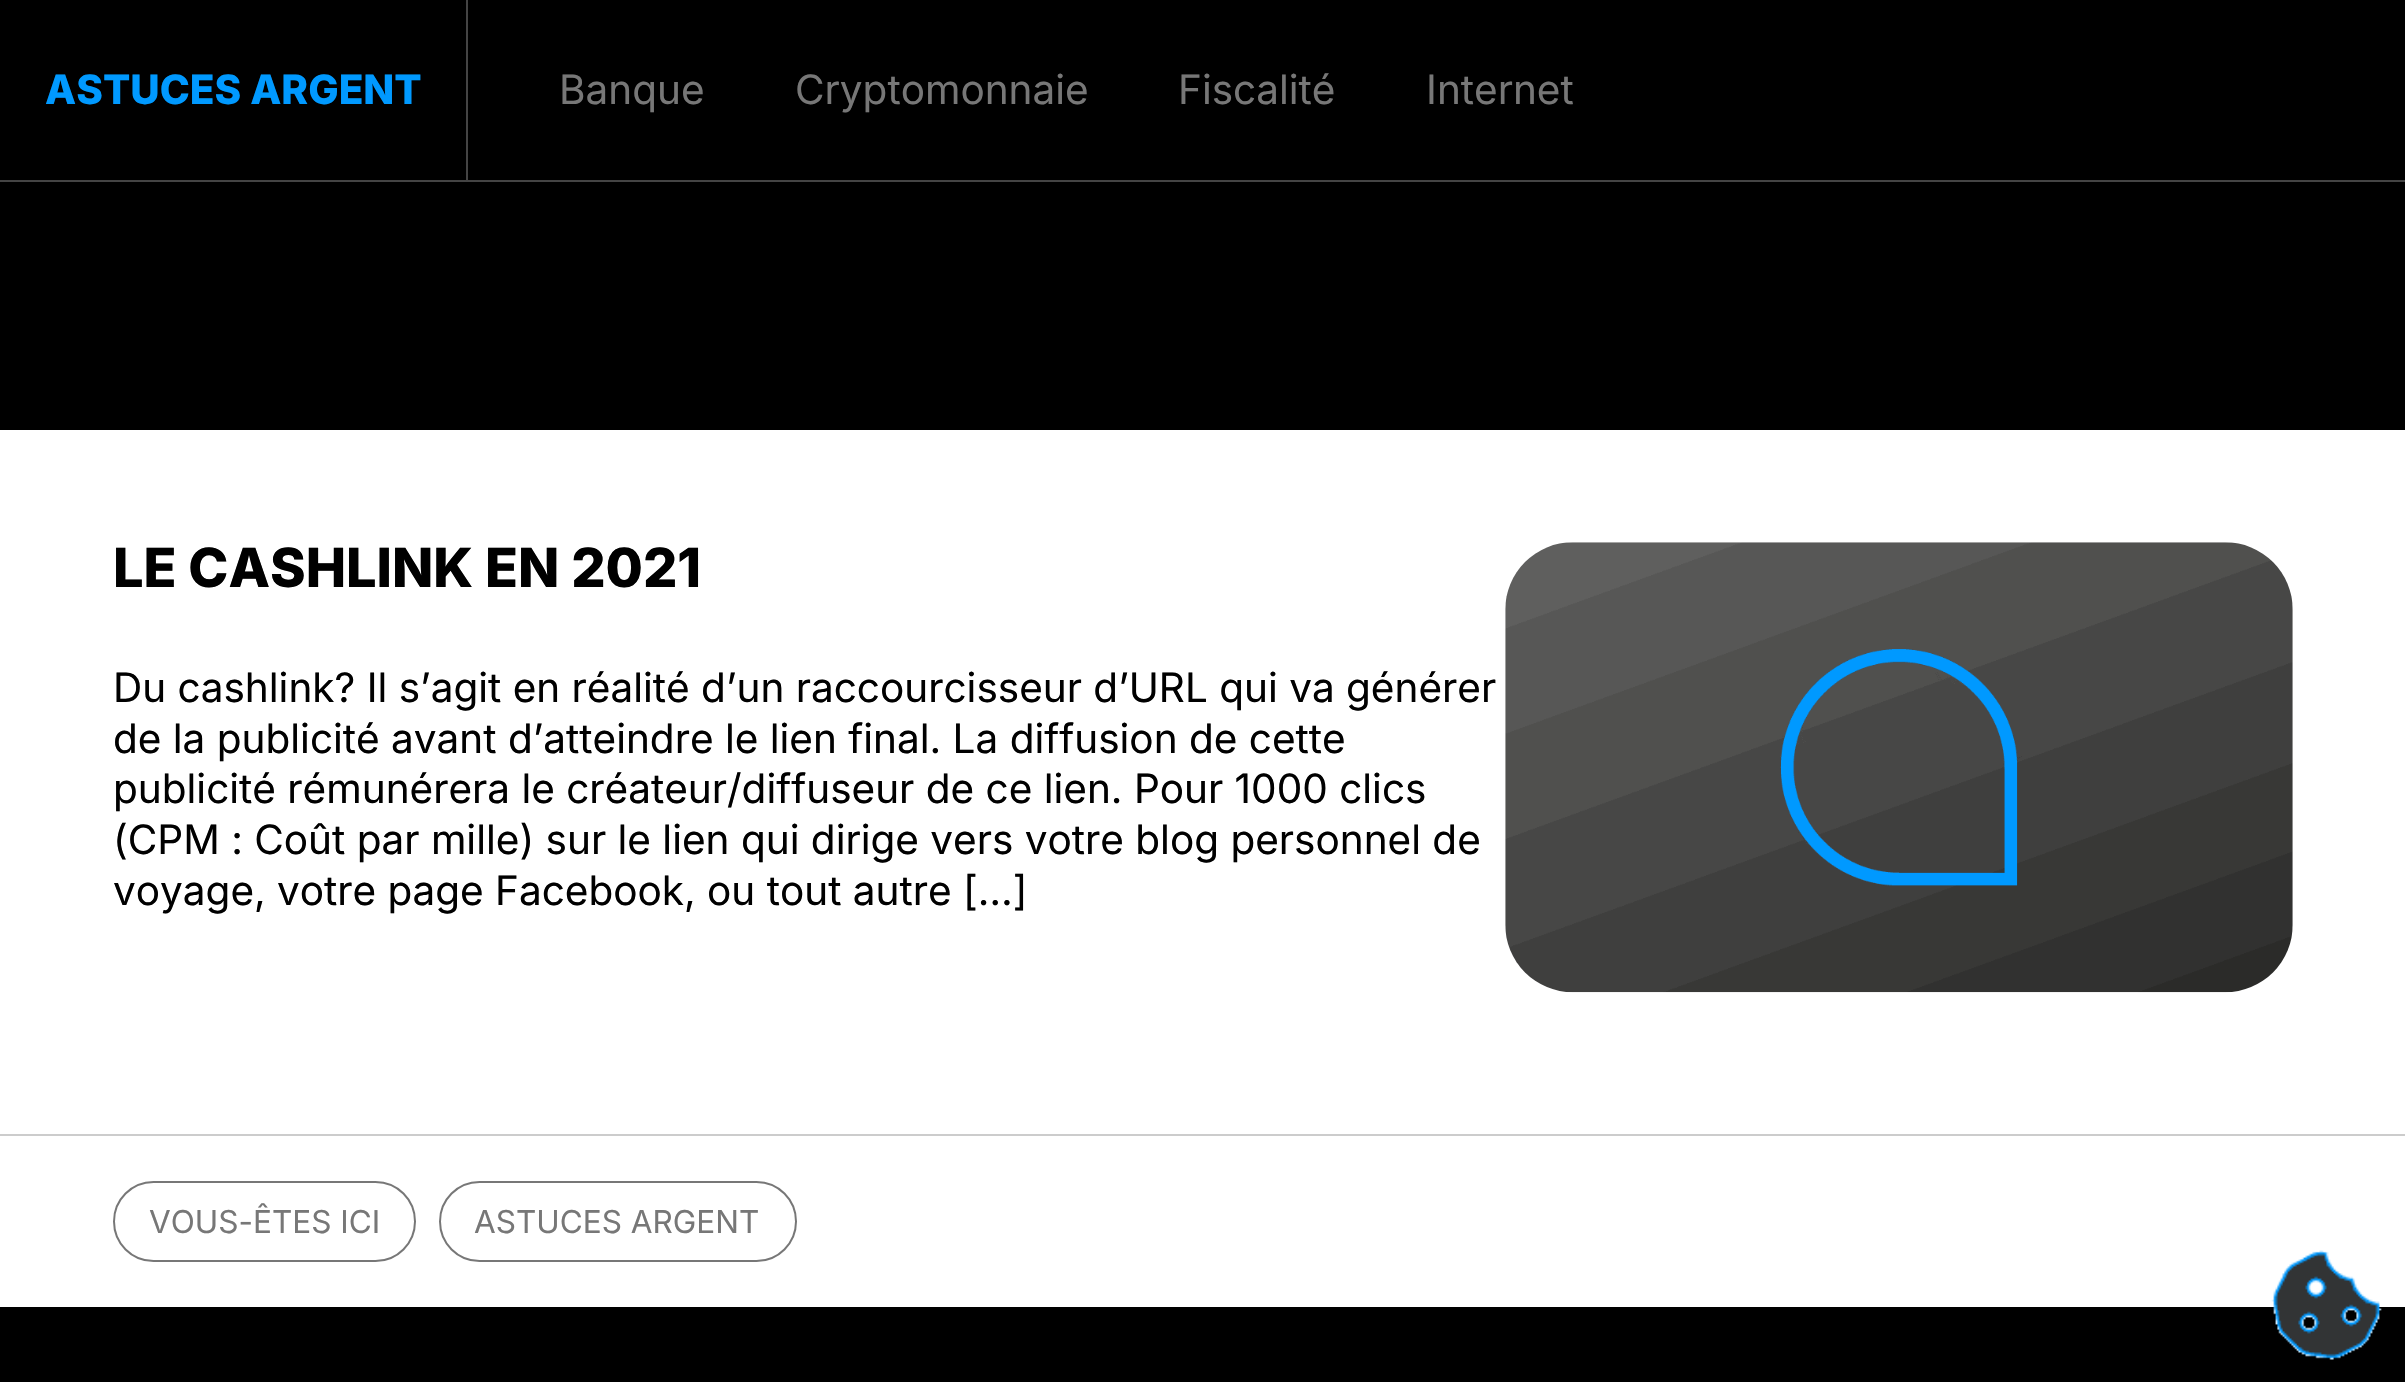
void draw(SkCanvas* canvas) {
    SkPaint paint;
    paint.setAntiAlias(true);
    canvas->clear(0xFFFFFFFF);
    paint.setColor(0xFF000000);
    canvas->drawRect(SkRect::MakeXYWH(0, 0, 2405, 430), paint);
    paint.setColor(0xFF444444);
    canvas->drawRect(SkRect::MakeXYWH(0, 180, 2405, 2), paint);
    canvas->drawRect(SkRect::MakeXYWH(466, 0, 2, 180), paint);
    SkFont font1(fontMgr->matchFamilyStyle("Inter", SkFontStyle(800, SkFontStyle::kNormal_Width, SkFontStyle::kUpright_Slant)), 40.5f);
    font1.setSubpixel(true);
    paint.setColor(0xFF0099FF);
    canvas->drawString("ASTUCES ARGENT", 45, 104, font1, paint);
    SkFont font2(fontMgr->matchFamilyStyle("Inter", SkFontStyle::Normal()), 40.5f);
    font2.setSubpixel(true);
    paint.setColor(0xFF777777);
    canvas->drawString("Banque", 559, 104, font2, paint);
    canvas->drawString("Cryptomonnaie", 795, 104, font2, paint);
    canvas->drawString("Fiscalité", 1178, 104, font2, paint);
    canvas->drawString("Internet", 1426, 104, font2, paint);
    SkFont font3(fontMgr->matchFamilyStyle("Inter", SkFontStyle(800, SkFontStyle::kNormal_Width, SkFontStyle::kUpright_Slant)), 54);
    font3.setSubpixel(true);
    paint.setColor(0xFF000000);
    canvas->drawString("LE CASHLINK EN 2021", 113, 587, font3, paint);
    canvas->drawString("Du cashlink? Il s’agit en réalité d’un raccourcisseur d’URL qui va générer", 113, 702, font2, paint);
    canvas->drawString("de la publicité avant d’atteindre le lien final. La diffusion de cette", 113, 753, font2, paint);
    canvas->drawString("publicité rémunérera le créateur/diffuseur de ce lien. Pour 1000 clics", 113, 803, font2, paint);
    canvas->drawString("(CPM : Coût par mille) sur le lien qui dirige vers votre blog personnel de", 113, 854, font2, paint);
    canvas->drawString("voyage, votre page Facebook, ou tout autre […]", 113, 905, font2, paint);
    canvas->drawImageRect(SkImages::DeferredFromEncodedData(SkData::MakeFromFileName("img1.png")), SkRect::MakeXYWH(1505, 542, 788, 451), SkSamplingOptions());
    paint.setColor(0xFFCCCCCC);
    canvas->drawRect(SkRect::MakeXYWH(0, 1134, 2405, 2), paint);
    paint.setStyle(SkPaint::kStroke_Style);
    paint.setStrokeWidth(2);
    paint.setColor(0xFF777777);
    canvas->drawRoundRect(SkRect::MakeXYWH(114, 1182, 301, 79), 39.5f, 39.5f, paint);
    SkFont font4(fontMgr->matchFamilyStyle("Inter", SkFontStyle::Normal()), 31.5f);
    font4.setSubpixel(true);
    paint.setStyle(SkPaint::kFill_Style);
    canvas->drawString("VOUS-ÊTES ICI", 149, 1233, font4, paint);
    paint.setStyle(SkPaint::kStroke_Style);
    canvas->drawRoundRect(SkRect::MakeXYWH(440, 1182, 356, 79), 39.5f, 39.5f, paint);
    paint.setStyle(SkPaint::kFill_Style);
    canvas->drawString("ASTUCES ARGENT", 474, 1233, font4, paint);
    paint.setColor(0xFF000000);
    canvas->drawRect(SkRect::MakeXYWH(0, 1307, 2405, 75), paint);
    canvas->drawImageRect(SkImages::DeferredFromEncodedData(SkData::MakeFromFileName("img2.png")), SkRect::MakeXYWH(2271, 1250, 111, 110), SkSamplingOptions());
}
